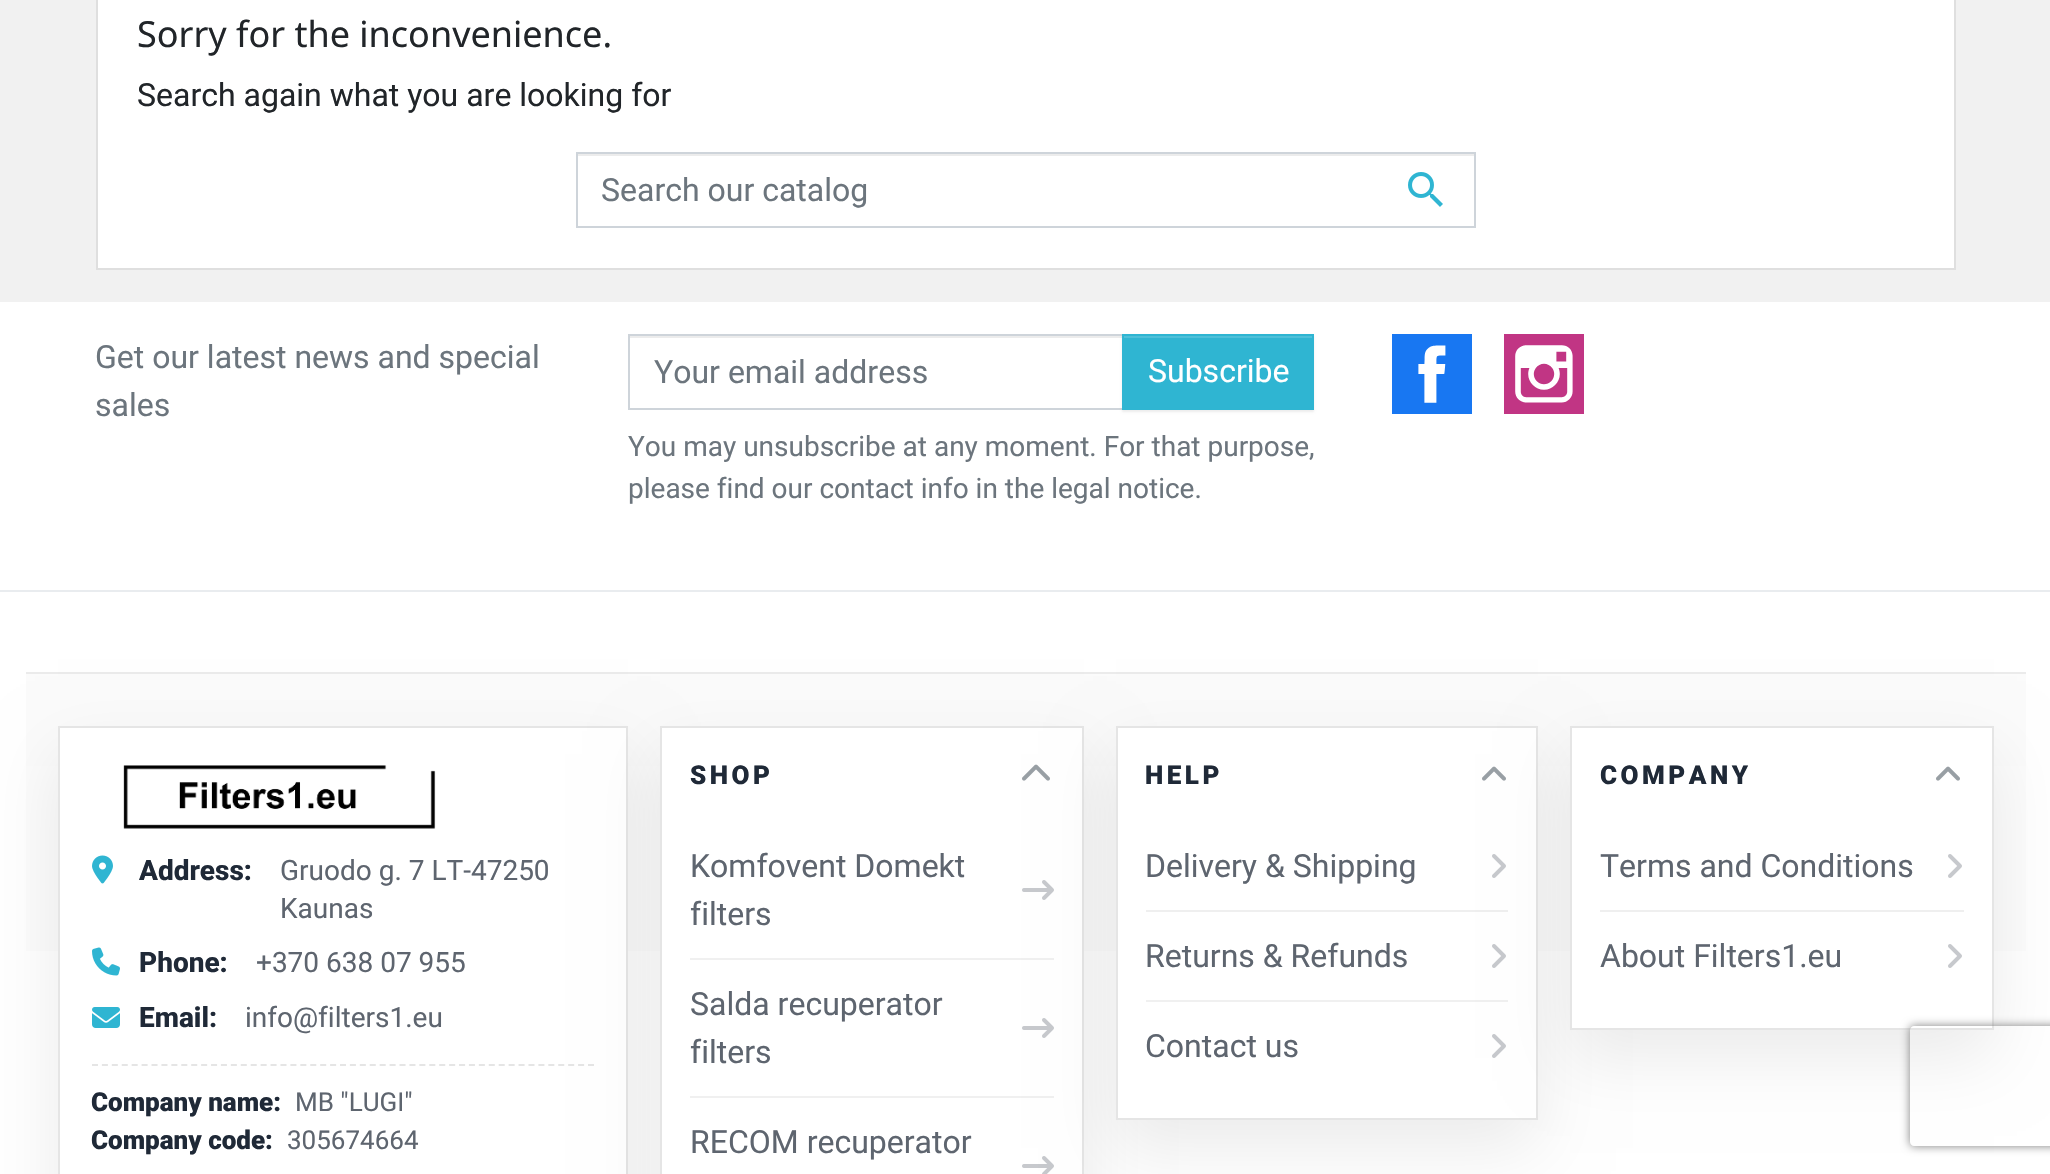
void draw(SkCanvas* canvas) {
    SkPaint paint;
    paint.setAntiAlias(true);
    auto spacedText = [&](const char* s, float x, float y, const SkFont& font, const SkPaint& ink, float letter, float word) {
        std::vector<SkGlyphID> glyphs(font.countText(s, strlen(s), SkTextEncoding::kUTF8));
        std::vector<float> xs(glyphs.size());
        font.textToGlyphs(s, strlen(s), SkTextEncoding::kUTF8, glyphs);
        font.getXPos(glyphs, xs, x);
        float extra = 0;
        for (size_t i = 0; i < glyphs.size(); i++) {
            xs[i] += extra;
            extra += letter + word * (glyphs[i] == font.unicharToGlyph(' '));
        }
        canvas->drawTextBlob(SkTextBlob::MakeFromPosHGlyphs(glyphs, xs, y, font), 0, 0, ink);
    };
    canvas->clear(0xFFF1F1F1);
    paint.setColor(0xFFFFFFFF);
    canvas->drawRect(SkRect::MakeXYWH(97, -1, 1858, 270), paint);
    paint.setStyle(SkPaint::kStroke_Style);
    paint.setStrokeWidth(2);
    paint.setColor(0xFFDFDFDF);
    canvas->drawRect(SkRect::MakeXYWH(97, -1, 1858, 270), paint);
    SkFont font1(fontMgr->matchFamilyStyle("Noto Sans", SkFontStyle::Normal()), 36);
    font1.setSubpixel(true);
    paint.setStyle(SkPaint::kFill_Style);
    paint.setColor(0xFF212529);
    canvas->drawString("Sorry for the inconvenience.", 137, 47, font1, paint);
    SkFont font2(fontMgr->matchFamilyStyle("Roboto", SkFontStyle::Normal()), 32);
    font2.setSubpixel(true);
    canvas->drawString("Search again what you are looking for", 137, 106, font2, paint);
    paint.setColor(0xFFECECEC);
    canvas->drawRect(SkRect::MakeXYWH(578, 154, 896, 2), paint);
    paint.setStyle(SkPaint::kStroke_Style);
    paint.setColor(0xFFCED4DA);
    canvas->drawRect(SkRect::MakeXYWH(577, 153, 898, 74), paint);
    paint.setStyle(SkPaint::kFill_Style);
    paint.setColor(0xFF6C757D);
    canvas->drawString("Search our catalog", 601, 201, font2, paint);
    canvas->drawImageRect(SkImages::DeferredFromEncodedData(SkData::MakeFromFileName("img1.png")), SkRect::MakeXYWH(1408, 172, 35, 35), SkSamplingOptions());
    paint.setColor(0xFFFFFFFF);
    canvas->drawRect(SkRect::MakeXYWH(0, 302, 2050, 872), paint);
    paint.setColor(0xFF6C757D);
    canvas->drawString("Get our latest news and special", 95, 368, font2, paint);
    canvas->drawString("sales", 95, 416, font2, paint);
    paint.setColor(0xFFECECEC);
    canvas->drawRect(SkRect::MakeXYWH(630, 336, 492, 2), paint);
    paint.setStyle(SkPaint::kStroke_Style);
    paint.setColor(0xFFCED4DA);
    canvas->drawRect(SkRect::MakeXYWH(629, 335, 494, 74), paint);
    paint.setStyle(SkPaint::kFill_Style);
    paint.setColor(0xFF6C757D);
    canvas->drawString("Your email address", 654, 383, font2, paint);
    paint.setColor(0x12000000);
    paint.setMaskFilter(SkMaskFilter::MakeBlur(kNormal_SkBlurStyle, 1));
    canvas->drawRect(SkRect::MakeXYWH(1122, 336, 192, 76), paint);
    paint.setMaskFilter(nullptr);
    paint.setColor(0xFF2FB5D2);
    canvas->drawRect(SkRect::MakeXYWH(1122, 334, 192, 76), paint);
    paint.setColor(0xFF4EC0D9);
    canvas->drawRect(SkRect::MakeXYWH(1124, 336, 188, 2), paint);
    paint.setColor(0xFFFFFFFF);
    canvas->drawString("Subscribe", 1148, 382, font2, paint);
    SkFont font3(fontMgr->matchFamilyStyle("Roboto", SkFontStyle::Normal()), 28);
    font3.setSubpixel(true);
    paint.setColor(0xFF6C757D);
    canvas->drawString("You may unsubscribe at any moment. For that purpose,", 628, 456, font3, paint);
    canvas->drawString("please find our contact info in the legal notice.", 628, 498, font3, paint);
    paint.setColor(0xFF1877F2);
    canvas->drawRect(SkRect::MakeXYWH(1392, 334, 80, 80), paint);
    canvas->drawImageRect(SkImages::DeferredFromEncodedData(SkData::MakeFromFileName("img2.png")), SkRect::MakeXYWH(1418, 345, 28, 58), SkSamplingOptions());
    paint.setColor(0xFFC13584);
    canvas->drawRect(SkRect::MakeXYWH(1504, 334, 80, 80), paint);
    canvas->drawImageRect(SkImages::DeferredFromEncodedData(SkData::MakeFromFileName("img3.png")), SkRect::MakeXYWH(1515, 345, 58, 58), SkSamplingOptions());
    paint.setColor(0xFFE9ECEF);
    canvas->drawRect(SkRect::MakeXYWH(0, 590, 2050, 2), paint);
    {
        const SkColor colors[] = {0xFFFBFBFB, 0xFFFFFFFF};
        const float stops[] = {0, 1};
        const SkPoint ends[] = {{1026, 674}, {1026, 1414}};
        paint.setShader(SkGradientShader::MakeLinear(ends, colors, stops, 2, SkTileMode::kClamp));
        paint.setAlpha(255);
    }
    canvas->drawRect(SkRect::MakeXYWH(26, 674, 2000, 277), paint);
    {
        const SkColor colors[] = {0xFFFFFFFF, 0xFFFFFFFF};
        const float stops[] = {0, 1};
        const SkPoint ends[] = {{1026, 674}, {1026, 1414}};
        paint.setShader(SkGradientShader::MakeLinear(ends, colors, stops, 2, SkTileMode::kClamp));
        paint.setAlpha(255);
    }
    canvas->drawRect(SkRect::MakeXYWH(60, 728, 566, 223), paint);
    paint.setShader(nullptr);
    paint.setColor(0xFFEBEBEB);
    canvas->drawRect(SkRect::MakeXYWH(26, 672, 2000, 2), paint);
    canvas->save();
    canvas->clipPath(SkPathBuilder(SkPathFillType::kEvenOdd).moveTo(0, 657).lineTo(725, 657).lineTo(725, 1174).lineTo(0, 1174).close().moveTo(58, 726).lineTo(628, 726).lineTo(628, 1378).lineTo(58, 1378).close().detach(), true);
    paint.setColor(0x14000000);
    paint.setMaskFilter(SkMaskFilter::MakeBlur(kNormal_SkBlurStyle, 32));
    canvas->drawRect(SkRect::MakeXYWH(58, 754, 570, 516), paint);
    paint.setMaskFilter(nullptr);
    canvas->restore();
    paint.setStyle(SkPaint::kStroke_Style);
    paint.setColor(0xFFE5E5E5);
    canvas->drawRect(SkRect::MakeXYWH(59, 727, 568, 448), paint);
    canvas->drawImageRect(SkImages::DeferredFromEncodedData(SkData::MakeFromFileName("img4.png")), SkRect::MakeXYWH(123, 765, 313, 64), SkSamplingOptions());
    canvas->drawImageRect(SkImages::DeferredFromEncodedData(SkData::MakeFromFileName("img5.png")), SkRect::MakeXYWH(92, 855, 21, 29), SkSamplingOptions());
    SkFont font4(fontMgr->matchFamilyStyle("Roboto", SkFontStyle(800, SkFontStyle::kNormal_Width, SkFontStyle::kUpright_Slant)), 28);
    font4.setSubpixel(true);
    paint.setStyle(SkPaint::kFill_Style);
    paint.setColor(0xFF1F2937);
    canvas->drawString("Address:", 139, 880, font4, paint);
    paint.setColor(0xFF5E656F);
    canvas->drawString("Gruodo g. 7 LT-47250", 280, 880, font3, paint);
    canvas->drawString("Kaunas", 280, 918, font3, paint);
    canvas->drawImageRect(SkImages::DeferredFromEncodedData(SkData::MakeFromFileName("img6.png")), SkRect::MakeXYWH(92, 947, 28, 29), SkSamplingOptions());
    paint.setColor(0xFF1F2937);
    canvas->drawString("Phone:", 139, 972, font4, paint);
    paint.setColor(0xFF5E656F);
    canvas->drawString("+370 638 07 955", 256, 972, font3, paint);
    canvas->drawImageRect(SkImages::DeferredFromEncodedData(SkData::MakeFromFileName("img7.png")), SkRect::MakeXYWH(92, 1007, 28, 21), SkSamplingOptions());
    paint.setColor(0xFF1F2937);
    canvas->drawString("Email:", 139, 1027, font4, paint);
    paint.setColor(0xFF5E656F);
    canvas->drawString("info@filters1.eu", 245, 1027, font3, paint);
    paint.setStyle(SkPaint::kStroke_Style);
    paint.setColor(0xFFE5E5E5);
    paint.setPathEffect(SkDashPathEffect::Make({{6, 3.92f}}, 0));
    canvas->drawPath(SkPathBuilder().moveTo(92, 1065).lineTo(594, 1065).detach(), paint);
    paint.setPathEffect(nullptr);
    SkFont font5(fontMgr->matchFamilyStyle("Roboto", SkFontStyle(900, SkFontStyle::kNormal_Width, SkFontStyle::kUpright_Slant)), 26);
    font5.setSubpixel(true);
    paint.setStyle(SkPaint::kFill_Style);
    paint.setColor(0xFF1F2937);
    canvas->drawString("Company name:", 91, 1111, font5, paint);
    SkFont font6(fontMgr->matchFamilyStyle("Roboto", SkFontStyle::Normal()), 26);
    font6.setSubpixel(true);
    paint.setColor(0xFF5E656F);
    canvas->drawString("MB \"LUGI\"", 295, 1111, font6, paint);
    paint.setColor(0xFF1F2937);
    canvas->drawString("Company code:", 91, 1149, font5, paint);
    paint.setColor(0xFF5E656F);
    canvas->drawString("305674664", 287, 1149, font6, paint);
    canvas->save();
    canvas->clipPath(SkPathBuilder(SkPathFillType::kEvenOdd).moveTo(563, 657).lineTo(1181, 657).lineTo(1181, 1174).lineTo(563, 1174).close().moveTo(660, 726).lineTo(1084, 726).lineTo(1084, 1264).lineTo(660, 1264).close().detach(), true);
    paint.setColor(0x14000000);
    paint.setMaskFilter(SkMaskFilter::MakeBlur(kNormal_SkBlurStyle, 32));
    canvas->drawRect(SkRect::MakeXYWH(660, 754, 424, 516), paint);
    paint.setMaskFilter(nullptr);
    canvas->restore();
    paint.setColor(0xE6FFFFFF);
    canvas->drawRect(SkRect::MakeXYWH(661, 727, 422, 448), paint);
    paint.setStyle(SkPaint::kStroke_Style);
    paint.setColor(0xFFE5E5E5);
    canvas->drawRect(SkRect::MakeXYWH(661, 727, 422, 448), paint);
    paint.setStyle(SkPaint::kFill_Style);
    paint.setColor(0xFF1F2937);
    spacedText("SHOP", 690, 784, font5, paint, 3.5f, 0);
    paint.setColor(0xFFF0F0F0);
    canvas->drawRect(SkRect::MakeXYWH(690, 958, 364, 2), paint);
    canvas->drawRect(SkRect::MakeXYWH(690, 1096, 364, 2), paint);
    canvas->save();
    canvas->clipPath(SkPathBuilder(SkPathFillType::kEvenOdd).moveTo(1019, 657).lineTo(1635, 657).lineTo(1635, 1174).lineTo(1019, 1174).close().moveTo(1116, 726).lineTo(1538, 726).lineTo(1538, 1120).lineTo(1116, 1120).close().detach(), true);
    paint.setColor(0x14000000);
    paint.setMaskFilter(SkMaskFilter::MakeBlur(kNormal_SkBlurStyle, 32));
    canvas->drawRect(SkRect::MakeXYWH(1116, 754, 422, 394), paint);
    paint.setMaskFilter(nullptr);
    canvas->restore();
    canvas->drawImageRect(SkImages::DeferredFromEncodedData(SkData::MakeFromFileName("img8.png")), SkRect::MakeXYWH(1022, 764, 28, 17), SkSamplingOptions());
    paint.setColor(0xFF5E656F);
    canvas->drawString("Komfovent Domekt", 690, 877, font2, paint);
    canvas->drawImageRect(SkImages::DeferredFromEncodedData(SkData::MakeFromFileName("img9.png")), SkRect::MakeXYWH(1022, 880, 32, 20), SkSamplingOptions());
    canvas->drawString("filters", 690, 925, font2, paint);
    canvas->drawString("Salda recuperator", 690, 1015, font2, paint);
    canvas->drawImageRect(SkImages::DeferredFromEncodedData(SkData::MakeFromFileName("img10.png")), SkRect::MakeXYWH(1022, 1018, 32, 20), SkSamplingOptions());
    canvas->drawString("filters", 690, 1063, font2, paint);
    canvas->drawString("RECOM recuperator", 690, 1153, font2, paint);
    canvas->drawImageRect(SkImages::DeferredFromEncodedData(SkData::MakeFromFileName("img11.png")), SkRect::MakeXYWH(1022, 1156, 32, 18), SkSamplingOptions());
    paint.setColor(0xE6FFFFFF);
    canvas->drawRect(SkRect::MakeXYWH(1117, 727, 420, 392), paint);
    paint.setStyle(SkPaint::kStroke_Style);
    paint.setColor(0xFFE5E5E5);
    canvas->drawRect(SkRect::MakeXYWH(1117, 727, 420, 392), paint);
    paint.setStyle(SkPaint::kFill_Style);
    paint.setColor(0xFF1F2937);
    spacedText("HELP", 1145, 784, font5, paint, 3.5f, 0);
    paint.setColor(0xFFEFEFEF);
    canvas->drawRect(SkRect::MakeXYWH(1146, 910, 362, 2), paint);
    paint.setColor(0xFFF0F0F0);
    canvas->drawRect(SkRect::MakeXYWH(1146, 1000, 362, 2), paint);
    canvas->save();
    canvas->clipPath(SkPathBuilder(SkPathFillType::kEvenOdd).moveTo(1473, 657).lineTo(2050, 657).lineTo(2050, 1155).lineTo(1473, 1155).close().moveTo(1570, 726).lineTo(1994, 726).lineTo(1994, 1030).lineTo(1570, 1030).close().detach(), true);
    paint.setColor(0x14000000);
    paint.setMaskFilter(SkMaskFilter::MakeBlur(kNormal_SkBlurStyle, 32));
    canvas->drawRect(SkRect::MakeXYWH(1570, 754, 424, 304), paint);
    paint.setMaskFilter(nullptr);
    canvas->restore();
    canvas->drawImageRect(SkImages::DeferredFromEncodedData(SkData::MakeFromFileName("img12.png")), SkRect::MakeXYWH(1482, 766, 24, 15), SkSamplingOptions());
    paint.setColor(0xFF5E656F);
    canvas->drawString("Delivery & Shipping", 1145, 877, font2, paint);
    canvas->drawImageRect(SkImages::DeferredFromEncodedData(SkData::MakeFromFileName("img13.png")), SkRect::MakeXYWH(1492, 854, 14, 24), SkSamplingOptions());
    canvas->drawString("Returns & Refunds", 1145, 967, font2, paint);
    canvas->drawImageRect(SkImages::DeferredFromEncodedData(SkData::MakeFromFileName("img14.png")), SkRect::MakeXYWH(1492, 944, 14, 24), SkSamplingOptions());
    canvas->drawString("Contact us", 1145, 1057, font2, paint);
    canvas->drawImageRect(SkImages::DeferredFromEncodedData(SkData::MakeFromFileName("img15.png")), SkRect::MakeXYWH(1492, 1034, 14, 24), SkSamplingOptions());
    paint.setColor(0xE6FFFFFF);
    canvas->drawRect(SkRect::MakeXYWH(1571, 727, 422, 302), paint);
    paint.setStyle(SkPaint::kStroke_Style);
    paint.setColor(0xFFE5E5E5);
    canvas->drawRect(SkRect::MakeXYWH(1571, 727, 422, 302), paint);
    paint.setStyle(SkPaint::kFill_Style);
    paint.setColor(0xFF1F2937);
    spacedText("COMPANY", 1600, 784, font5, paint, 3.5f, 0);
    canvas->drawImageRect(SkImages::DeferredFromEncodedData(SkData::MakeFromFileName("img16.png")), SkRect::MakeXYWH(1936, 766, 24, 15), SkSamplingOptions());
    paint.setColor(0xFFEFEFEF);
    canvas->drawRect(SkRect::MakeXYWH(1600, 910, 364, 2), paint);
    paint.setColor(0xFF5E656F);
    canvas->drawString("Terms and Conditions", 1600, 877, font2, paint);
    canvas->drawImageRect(SkImages::DeferredFromEncodedData(SkData::MakeFromFileName("img17.png")), SkRect::MakeXYWH(1948, 854, 14, 24), SkSamplingOptions());
    canvas->drawString("About Filters1.eu", 1600, 967, font2, paint);
    canvas->drawImageRect(SkImages::DeferredFromEncodedData(SkData::MakeFromFileName("img18.png")), SkRect::MakeXYWH(1948, 944, 14, 24), SkSamplingOptions());
    canvas->save();
    canvas->clipPath(SkPathBuilder(SkPathFillType::kEvenOdd).moveTo(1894, 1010).lineTo(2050, 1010).lineTo(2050, 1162).lineTo(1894, 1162).close().moveTo(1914, 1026).lineTo(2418, 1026).cubicTo(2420, 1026, 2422, 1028, 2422, 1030).lineTo(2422, 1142).cubicTo(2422, 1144, 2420, 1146, 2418, 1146).lineTo(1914, 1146).cubicTo(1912, 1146, 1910, 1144, 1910, 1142).lineTo(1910, 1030).cubicTo(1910, 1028, 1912, 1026, 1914, 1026).close().detach(), true);
    paint.setColor(0xFF808080);
    paint.setMaskFilter(SkMaskFilter::MakeBlur(kNormal_SkBlurStyle, 5));
    canvas->drawRoundRect(SkRect::MakeXYWH(1910, 1026, 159, 120), 4, 4, paint);
    paint.setMaskFilter(nullptr);
    canvas->restore();
}
